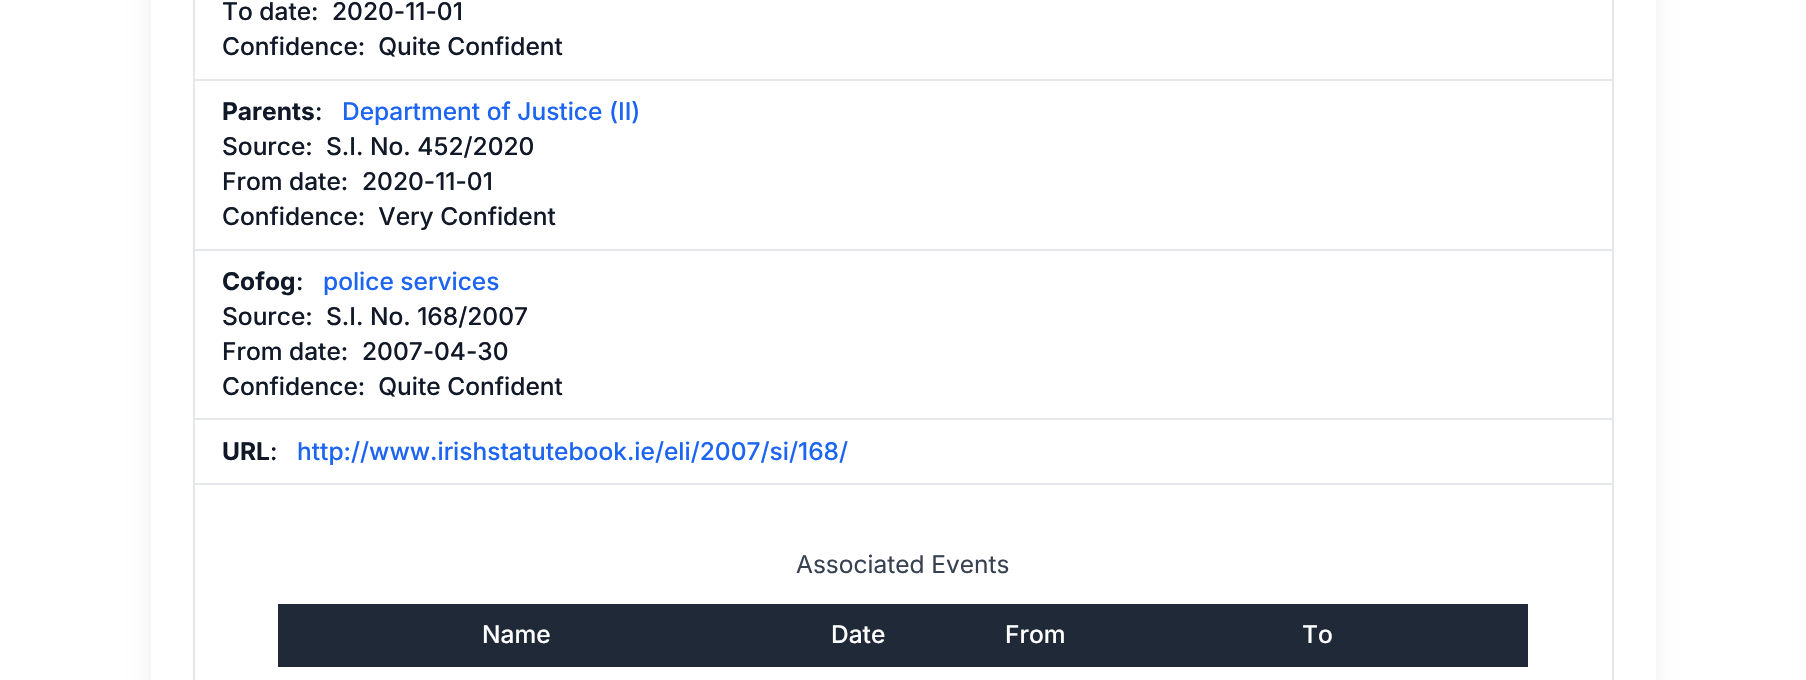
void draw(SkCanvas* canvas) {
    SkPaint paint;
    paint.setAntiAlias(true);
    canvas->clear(0xFFFFFFFF);
    paint.setColor(0x1A000000);
    paint.setMaskFilter(SkMaskFilter::MakeBlur(kNormal_SkBlurStyle, 13));
    canvas->drawRoundRect(SkRect::MakeXYWH(156, -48, 1494, 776), 9, 9, paint);
    paint.setMaskFilter(nullptr);
    paint.setColor(0xFFFFFFFF);
    canvas->drawRect(SkRect::MakeXYWH(151, 0, 1505, 680), paint);
    paint.setStyle(SkPaint::kStroke_Style);
    paint.setStrokeWidth(2);
    paint.setColor(0xFFE5E7EB);
    canvas->drawRect(SkRect::MakeXYWH(194, -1, 1419, 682), paint);
    paint.setStyle(SkPaint::kFill_Style);
    canvas->drawRect(SkRect::MakeXYWH(194, 79, 1418, 2), paint);
    SkFont font1(fontMgr->matchFamilyStyle("Inter", SkFontStyle(500, SkFontStyle::kNormal_Width, SkFontStyle::kUpright_Slant)), 24.5f);
    font1.setSubpixel(true);
    paint.setColor(0xFF111827);
    canvas->drawString("To date:", 222, 20, font1, paint);
    canvas->drawString("2020-11-01", 332, 20, font1, paint);
    canvas->drawString("Confidence:  Quite Confident", 222, 55, font1, paint);
    paint.setColor(0xFFE5E7EB);
    canvas->drawRect(SkRect::MakeXYWH(194, 249, 1418, 2), paint);
    SkFont font2(fontMgr->matchFamilyStyle("Inter", SkFontStyle::Bold()), 24.5f);
    font2.setSubpixel(true);
    paint.setColor(0xFF111827);
    canvas->drawString("Parents", 222, 120, font2, paint);
    canvas->drawString(":", 315, 120, font1, paint);
    paint.setColor(0xFF1C64F2);
    canvas->drawString("Department of Justice (II)", 342, 120, font1, paint);
    paint.setColor(0xFF111827);
    canvas->drawString("Source:", 222, 155, font1, paint);
    canvas->drawString("S.I. No. 452/2020", 326, 155, font1, paint);
    canvas->drawString("From date:", 222, 190, font1, paint);
    canvas->drawString("2020-11-01", 362, 190, font1, paint);
    canvas->drawString("Confidence:  Very Confident", 222, 225, font1, paint);
    paint.setColor(0xFFE5E7EB);
    canvas->drawRect(SkRect::MakeXYWH(194, 418, 1418, 2), paint);
    paint.setColor(0xFF111827);
    canvas->drawString("Cofog", 222, 290, font2, paint);
    canvas->drawString(":", 296, 290, font1, paint);
    paint.setColor(0xFF1C64F2);
    canvas->drawString("police services", 323, 290, font1, paint);
    paint.setColor(0xFF111827);
    canvas->drawString("Source:", 222, 325, font1, paint);
    canvas->drawString("S.I. No. 168/2007", 326, 325, font1, paint);
    canvas->drawString("From date:", 222, 360, font1, paint);
    canvas->drawString("2007-04-30", 362, 360, font1, paint);
    canvas->drawString("Confidence:  Quite Confident", 222, 395, font1, paint);
    paint.setColor(0xFFE5E7EB);
    canvas->drawRect(SkRect::MakeXYWH(194, 483, 1418, 2), paint);
    paint.setColor(0xFF111827);
    canvas->drawString("URL", 222, 460, font2, paint);
    canvas->drawString(":", 270, 460, font1, paint);
    paint.setColor(0xFF1C64F2);
    canvas->drawString("http://www.irishstatutebook.ie/eli/2007/si/168/", 297, 460, font1, paint);
    SkFont font3(fontMgr->matchFamilyStyle("Inter", SkFontStyle::Normal()), 24.5f);
    font3.setSubpixel(true);
    paint.setColor(0xFF374151);
    canvas->drawString("Associated Events", 796, 573, font3, paint);
    paint.setColor(0xFF1F2937);
    canvas->drawRect(SkRect::MakeXYWH(278, 604, 1250, 63), paint);
    paint.setColor(0xFFFFFFFF);
    canvas->drawString("Name", 482, 643, font1, paint);
    canvas->drawString("Date", 831, 643, font1, paint);
    canvas->drawString("From", 1005, 643, font1, paint);
    canvas->drawString("To", 1302, 643, font1, paint);
}
